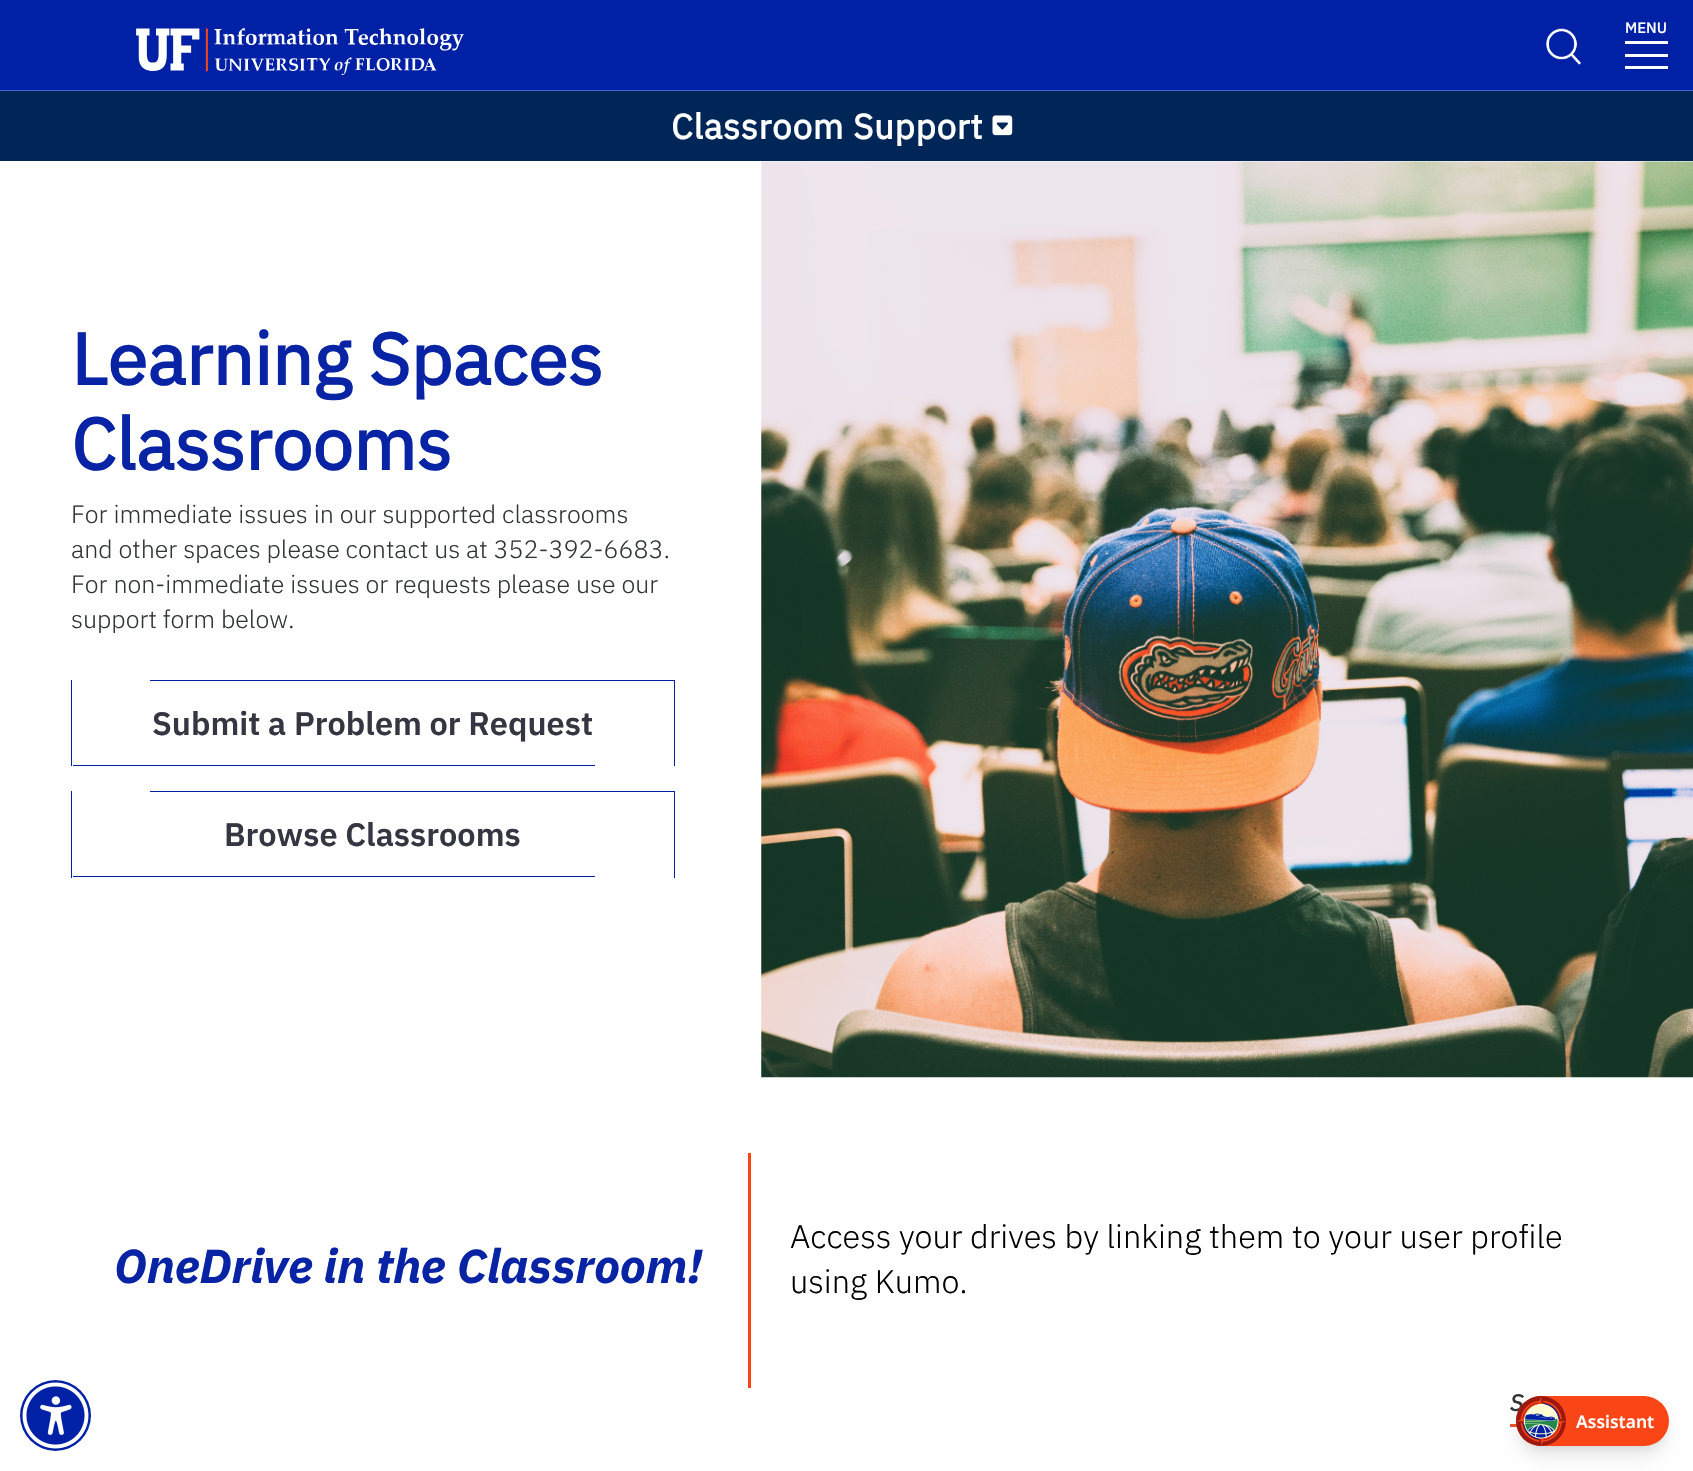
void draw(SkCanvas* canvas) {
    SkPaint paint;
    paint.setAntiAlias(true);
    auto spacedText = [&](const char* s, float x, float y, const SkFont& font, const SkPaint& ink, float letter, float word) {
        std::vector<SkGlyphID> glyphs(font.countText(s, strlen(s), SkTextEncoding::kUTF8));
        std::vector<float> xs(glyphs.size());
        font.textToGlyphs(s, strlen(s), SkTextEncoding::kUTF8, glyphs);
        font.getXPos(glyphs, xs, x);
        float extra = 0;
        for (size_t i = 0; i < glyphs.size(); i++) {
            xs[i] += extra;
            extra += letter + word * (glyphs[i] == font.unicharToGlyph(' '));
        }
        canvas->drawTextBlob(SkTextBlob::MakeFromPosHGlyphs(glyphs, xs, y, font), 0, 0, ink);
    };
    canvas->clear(0xFFFFFFFF);
    paint.setColor(0xFF0021A5);
    canvas->drawRect(SkRect::MakeXYWH(0, 0, 1693, 90), paint);
    paint.setColor(0xFF4A63CB);
    canvas->drawRect(SkRect::MakeXYWH(0, 90, 1693, 1), paint);
    canvas->drawImageRect(SkImages::DeferredFromEncodedData(SkData::MakeFromFileName("img1.png")), SkRect::MakeXYWH(136, 28, 328, 47), SkSamplingOptions());
    canvas->drawImageRect(SkImages::DeferredFromEncodedData(SkData::MakeFromFileName("img2.png")), SkRect::MakeXYWH(1546, 28, 36, 37), SkSamplingOptions());
    SkFont font1(fontMgr->matchFamilyStyle("IBM Plex Sans", SkFontStyle(500, SkFontStyle::kNormal_Width, SkFontStyle::kUpright_Slant)), 15);
    font1.setSubpixel(true);
    paint.setColor(0xFFFFFFFF);
    canvas->drawString("MENU", 1625, 33, font1, paint);
    canvas->drawRect(SkRect::MakeXYWH(1625, 54, 43, 3), paint);
    canvas->drawRect(SkRect::MakeXYWH(1625, 41, 43, 3), paint);
    canvas->drawRect(SkRect::MakeXYWH(1625, 66, 43, 3), paint);
    paint.setColor(0xFF002657);
    canvas->drawRect(SkRect::MakeXYWH(0, 91, 1693, 70), paint);
    SkFont font2(fontMgr->matchFamilyStyle("IBM Plex Sans", SkFontStyle::Bold()), 35);
    font2.setSubpixel(true);
    paint.setColor(0xFFFFFFFF);
    spacedText("Classroom Support", 671, 139, font2, paint, 0.7f, 0);
    canvas->drawImageRect(SkImages::DeferredFromEncodedData(SkData::MakeFromFileName("img3.png")), SkRect::MakeXYWH(992, 115, 21, 21), SkSamplingOptions());
    paint.setColor(0xFF0021A5);
    canvas->drawCircle(55.5f, 1415.5f, 35.5f, paint);
    canvas->drawImageRect(SkImages::DeferredFromEncodedData(SkData::MakeFromFileName("img4.png")), SkRect::MakeXYWH(22, 1382, 67, 67), SkSamplingOptions());
    SkFont font3(fontMgr->matchFamilyStyle("IBM Plex Sans", SkFontStyle::Bold()), 72.5f);
    font3.setSubpixel(true);
    paint.setColor(0xFF0824A4);
    canvas->drawString("Learning Spaces", 71, 385, font3, paint);
    canvas->drawString("Classrooms", 71, 470, font3, paint);
    SkFont font4(fontMgr->matchFamilyStyle("IBM Plex Sans", SkFontStyle(300, SkFontStyle::kNormal_Width, SkFontStyle::kUpright_Slant)), 25);
    font4.setSubpixel(true);
    paint.setColor(0xFF313535);
    canvas->drawString("For immediate issues in our supported classrooms", 71, 523, font4, paint);
    canvas->drawString("and other spaces please contact us at 352-392-6683.", 71, 558, font4, paint);
    canvas->drawString("For non-immediate issues or requests please use our", 71, 593, font4, paint);
    canvas->drawString("support form below.", 71, 628, font4, paint);
    paint.setColor(0xFF0021A5);
    canvas->drawRect(SkRect::MakeXYWH(674, 680, 1, 86), paint);
    canvas->drawRect(SkRect::MakeXYWH(71, 680, 1, 86), paint);
    canvas->drawRect(SkRect::MakeXYWH(150, 680, 524, 1), paint);
    SkFont font5(fontMgr->matchFamilyStyle("IBM Plex Sans", SkFontStyle(600, SkFontStyle::kNormal_Width, SkFontStyle::kUpright_Slant)), 32.5f);
    font5.setSubpixel(true);
    paint.setColor(0xFF343741);
    canvas->drawString("Submit a Problem or Request", 152, 735, font5, paint);
    paint.setColor(0xFF0021A5);
    canvas->drawRect(SkRect::MakeXYWH(73, 765, 522, 1), paint);
    canvas->drawRect(SkRect::MakeXYWH(674, 791, 1, 87), paint);
    canvas->drawRect(SkRect::MakeXYWH(71, 791, 1, 87), paint);
    canvas->drawRect(SkRect::MakeXYWH(150, 791, 524, 1), paint);
    paint.setColor(0xFF343741);
    canvas->drawString("Browse Classrooms", 224, 846, font5, paint);
    paint.setColor(0xFF0021A5);
    canvas->drawRect(SkRect::MakeXYWH(73, 876, 522, 1), paint);
    canvas->drawImageRect(SkImages::DeferredFromEncodedData(SkData::MakeFromFileName("img5.png")), SkRect::MakeXYWH(761, 161, 932, 917), SkSamplingOptions());
    SkFont font6(fontMgr->matchFamilyStyle("IBM Plex Sans", SkFontStyle::BoldItalic()), 47.5f);
    font6.setSubpixel(true);
    paint.setColor(0xFF0824A4);
    canvas->drawString("OneDrive in the Classroom!", 114, 1283, font6, paint);
    paint.setColor(0xFFFA4616);
    canvas->drawRect(SkRect::MakeXYWH(748, 1153, 3, 235), paint);
    SkFont font7(fontMgr->matchFamilyStyle("IBM Plex Sans", SkFontStyle(300, SkFontStyle::kNormal_Width, SkFontStyle::kUpright_Slant)), 32.5f);
    font7.setSubpixel(true);
    paint.setColor(0xFF000000);
    canvas->drawString("Access your drives by linking them to your user profile", 790, 1248, font7, paint);
    canvas->drawString("using Kumo.", 790, 1293, font7, paint);
    SkFont font8(fontMgr->matchFamilyStyle("IBM Plex Sans", SkFontStyle(500, SkFontStyle::kNormal_Width, SkFontStyle::kItalic_Slant)), 24);
    font8.setSubpixel(true);
    paint.setColor(0xFF313535);
    canvas->drawString("S", 1510, 1411, font8, paint);
    paint.setColor(0xFFE8552F);
    canvas->drawRect(SkRect::MakeXYWH(1510, 1424, 7, 3), paint);
    paint.setColor(0x1A000000);
    paint.setMaskFilter(SkMaskFilter::MakeBlur(kNormal_SkBlurStyle, 4));
    canvas->drawRoundRect(SkRect::MakeXYWH(1521, 1406, 143, 40), 20, 20, paint);
    paint.setMaskFilter(nullptr);
    paint.setMaskFilter(SkMaskFilter::MakeBlur(kNormal_SkBlurStyle, 9.5f));
    canvas->drawRoundRect(SkRect::MakeXYWH(1520, 1413, 145, 42), 21, 21, paint);
    paint.setMaskFilter(nullptr);
    paint.setColor(0xFFFA4616);
    canvas->drawRoundRect(SkRect::MakeXYWH(1516, 1396, 153, 50), 25, 25, paint);
    paint.setColor(0xFF9B1911);
    canvas->drawCircle(1541, 1421, 25, paint);
    canvas->drawImageRect(SkImages::DeferredFromEncodedData(SkData::MakeFromFileName("img6.png")), SkRect::MakeXYWH(1516, 1396, 50, 50), SkSamplingOptions());
    SkFont font9(fontMgr->matchFamilyStyle("Noto Sans", SkFontStyle(600, SkFontStyle::kNormal_Width, SkFontStyle::kUpright_Slant)), 17.5f);
    font9.setSubpixel(true);
    paint.setColor(0xFFFFFFFF);
    canvas->drawString("Assistant", 1576, 1428, font9, paint);
}
